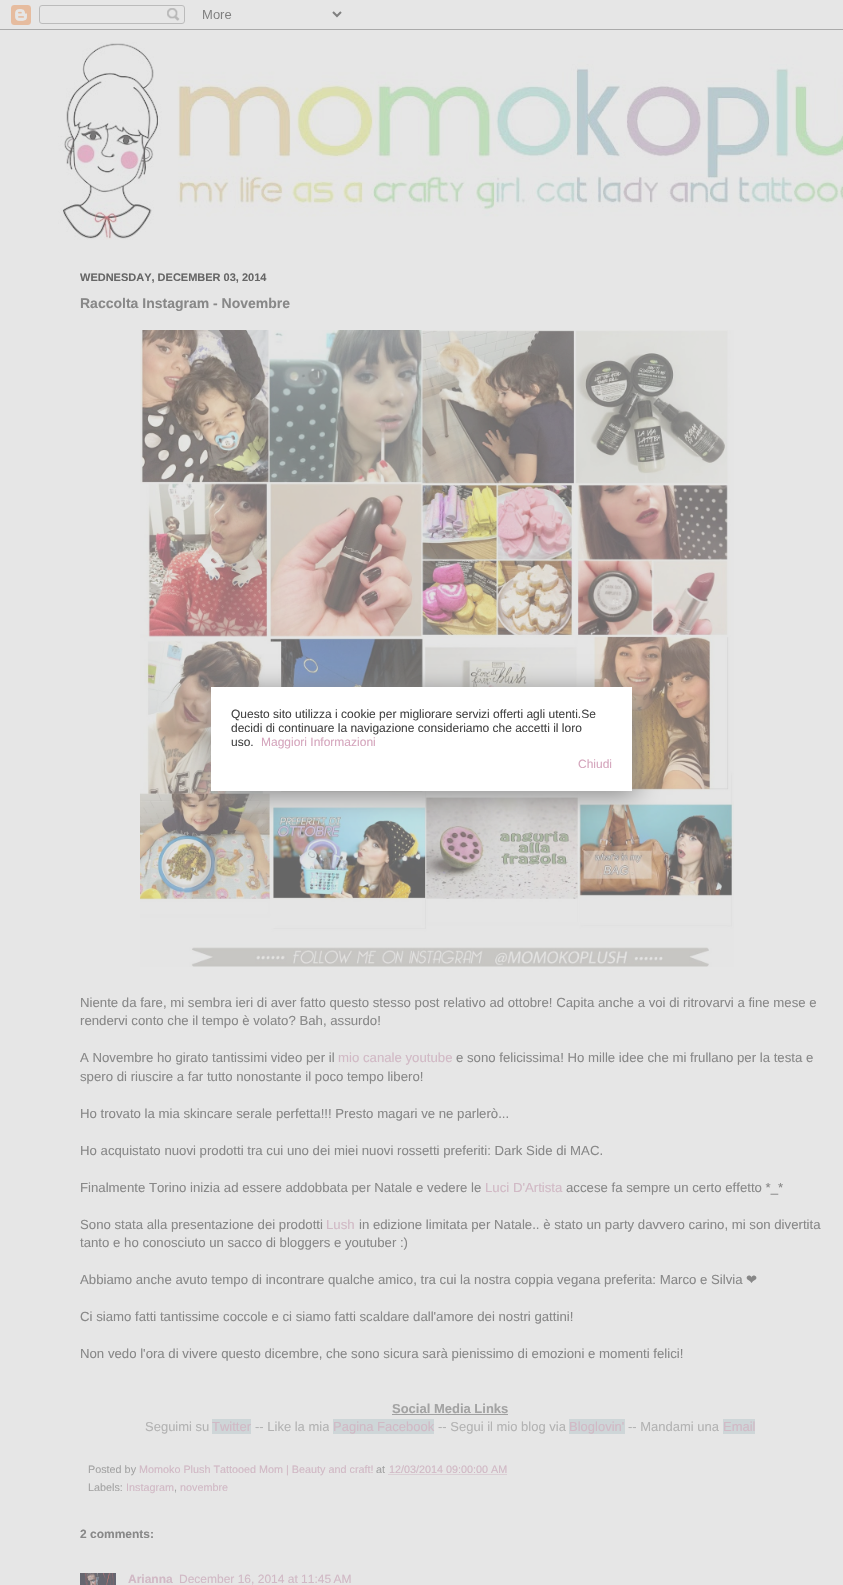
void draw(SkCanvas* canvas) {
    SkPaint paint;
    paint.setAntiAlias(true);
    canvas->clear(0xFFE6E6E6);
    canvas->drawImageRect(SkImages::DeferredFromEncodedData(SkData::MakeFromFileName("img1.png")), SkRect::MakeXYWH(0, 5, 843, 25), SkSamplingOptions());
    canvas->drawImageRect(SkImages::DeferredFromEncodedData(SkData::MakeFromFileName("img2.png")), SkRect::MakeXYWH(58, 42, 785, 198), SkSamplingOptions());
    SkFont font1(fontMgr->matchFamilyStyle("Liberation Sans", SkFontStyle::Bold()), 11);
    font1.setSubpixel(true);
    paint.setColor(0xFF666666);
    canvas->drawString("WEDNESDAY, DECEMBER 03, 2014", 80, 281, font1, paint);
    SkFont font2(fontMgr->matchFamilyStyle("Liberation Sans", SkFontStyle::Bold()), 14);
    font2.setSubpixel(true);
    paint.setColor(0xFF888888);
    canvas->drawString("Raccolta Instagram - Novembre", 80, 308, font2, paint);
    canvas->drawImageRect(SkImages::DeferredFromEncodedData(SkData::MakeFromFileName("img3.png")), SkRect::MakeXYWH(140, 330, 594, 637), SkSamplingOptions());
    SkFont font3(fontMgr->matchFamilyStyle("Liberation Sans", SkFontStyle::Normal()), 13.2f);
    font3.setSubpixel(true);
    canvas->drawString("Niente da fare, mi sembra ieri di aver fatto questo stesso post relativo ad ottobre! Capita anche a voi di ritrovarvi a fine mese e", 80, 1007, font3, paint);
    canvas->drawString("rendervi conto che il tempo è volato? Bah, assurdo!", 80, 1025, font3, paint);
    canvas->drawString("A Novembre ho girato tantissimi video per il", 80, 1062, font3, paint);
    paint.setColor(0xFFD1B9C5);
    canvas->drawString("mio canale youtube", 338, 1062, font3, paint);
    paint.setColor(0xFF888888);
    canvas->drawString("e sono felicissima! Ho mille idee che mi frullano per la testa e", 456, 1062, font3, paint);
    canvas->drawString("spero di riuscire a far tutto nonostante il poco tempo libero!", 80, 1081, font3, paint);
    canvas->drawString("Ho trovato la mia skincare serale perfetta!!! Presto magari ve ne parlerò...", 80, 1118, font3, paint);
    canvas->drawString("Ho acquistato nuovi prodotti tra cui uno dei miei nuovi rossetti preferiti: Dark Side di MAC.", 80, 1155, font3, paint);
    canvas->drawString("Finalmente Torino inizia ad essere addobbata per Natale e vedere le", 80, 1192, font3, paint);
    paint.setColor(0xFFD1B9C5);
    canvas->drawString("Luci D'Artista", 485, 1192, font3, paint);
    paint.setColor(0xFF888888);
    canvas->drawString("accese fa sempre un certo effetto *_*", 566, 1192, font3, paint);
    canvas->drawString("Sono stata alla presentazione dei prodotti", 80, 1229, font3, paint);
    paint.setColor(0xFFD1B9C5);
    canvas->drawString("Lush", 326, 1229, font3, paint);
    paint.setColor(0xFF888888);
    canvas->drawString("in edizione limitata per Natale.. è stato un party davvero carino, mi son divertita", 359, 1229, font3, paint);
    canvas->drawString("tanto e ho conosciuto un sacco di bloggers e youtuber :)", 80, 1247, font3, paint);
    canvas->drawString("Abbiamo anche avuto tempo di incontrare qualche amico, tra cui la nostra coppia vegana preferita: Marco e Silvia", 80, 1284, font3, paint);
    SkFont font4(fontMgr->matchFamilyStyle("DejaVu Sans", SkFontStyle::Normal()), 13.2f);
    font4.setSubpixel(true);
    canvas->drawString("❤", 746, 1284, font4, paint);
    canvas->drawString("Ci siamo fatti tantissime coccole e ci siamo fatti scaldare dall'amore dei nostri gattini!", 80, 1321, font3, paint);
    canvas->drawString("Non vedo l'ora di vivere questo dicembre, che sono sicura sarà pienissimo di emozioni e momenti felici!", 80, 1358, font3, paint);
    SkFont font5(fontMgr->matchFamilyStyle("Liberation Sans", SkFontStyle::Bold()), 13);
    font5.setSubpixel(true);
    paint.setColor(0xFFA3A3A3);
    canvas->drawString("Social Media Links", 392, 1413, font5, paint);
    paint.setColor(0xFFA0A0A0);
    canvas->drawRect(SkRect::MakeXYWH(392, 1414, 116, 1), paint);
    SkFont font6(fontMgr->matchFamilyStyle("Liberation Sans", SkFontStyle::Normal()), 13);
    font6.setSubpixel(true);
    paint.setColor(0xFFB3B3B3);
    canvas->drawString("Seguimi su", 145, 1431, font6, paint);
    paint.setColor(0xFFCED6D8);
    canvas->drawRect(SkRect::MakeXYWH(212, 1419, 39, 15), paint);
    paint.setColor(0xFFD1B9C5);
    canvas->drawString("Twitter", 212, 1431, font6, paint);
    paint.setColor(0xFFB3B3B3);
    canvas->drawString("-- Like la mia", 255, 1431, font6, paint);
    paint.setColor(0xFFE6E6E6);
    canvas->drawRect(SkRect::MakeXYWH(329, 1430, 1, 4), paint);
    paint.setColor(0xFFCED6D8);
    canvas->drawRect(SkRect::MakeXYWH(333, 1419, 101, 15), paint);
    paint.setColor(0xFFD1B9C5);
    canvas->drawString("Pagina Facebook", 333, 1431, font6, paint);
    paint.setColor(0xFFB3B3B3);
    canvas->drawString("-- Segui il mio blog via", 438, 1431, font6, paint);
    paint.setColor(0xFFCED6D8);
    canvas->drawRect(SkRect::MakeXYWH(569, 1419, 56, 15), paint);
    paint.setColor(0xFFD1B9C5);
    canvas->drawString("Bloglovin'", 569, 1431, font6, paint);
    paint.setColor(0xFFB3B3B3);
    canvas->drawString("-- Mandami una", 628, 1431, font6, paint);
    paint.setColor(0xFFCED6D8);
    canvas->drawRect(SkRect::MakeXYWH(723, 1419, 32, 15), paint);
    paint.setColor(0xFFD1B9C5);
    canvas->drawString("Email", 723, 1431, font6, paint);
    SkFont font7(fontMgr->matchFamilyStyle("Liberation Sans", SkFontStyle::Normal()), 10.8f);
    font7.setSubpixel(true);
    paint.setColor(0xFFA3A3A3);
    canvas->drawString("Posted by", 88, 1473, font7, paint);
    paint.setColor(0xFFD1B9C5);
    canvas->drawString("Momoko Plush Tattooed Mom | Beauty and craft!", 139, 1473, font7, paint);
    paint.setColor(0xFFA3A3A3);
    canvas->drawString("at", 376, 1473, font7, paint);
    paint.setColor(0xFFD1B9C5);
    canvas->drawString("12/03/2014 09:00:00 AM", 389, 1473, font7, paint);
    paint.setStyle(SkPaint::kStroke_Style);
    paint.setStrokeWidth(1);
    paint.setPathEffect(SkDashPathEffect::Make({{1, 1}}, 0));
    canvas->drawPath(SkPathBuilder().moveTo(388.5f, 1474.5f).lineTo(507, 1474.5f).detach(), paint);
    paint.setPathEffect(nullptr);
    paint.setStyle(SkPaint::kFill_Style);
    paint.setColor(0xFFA3A3A3);
    canvas->drawString("Labels:", 88, 1491, font7, paint);
    paint.setColor(0xFFD1B9C5);
    canvas->drawString("Instagram", 126, 1491, font7, paint);
    paint.setColor(0xFFA3A3A3);
    canvas->drawString(",", 174, 1491, font7, paint);
    paint.setColor(0xFFD1B9C5);
    canvas->drawString("novembre", 180, 1491, font7, paint);
    SkFont font8(fontMgr->matchFamilyStyle("Liberation Sans", SkFontStyle::Bold()), 12);
    font8.setSubpixel(true);
    paint.setColor(0xFF888888);
    canvas->drawString("2 comments:", 80, 1538, font8, paint);
    canvas->drawImageRect(SkImages::DeferredFromEncodedData(SkData::MakeFromFileName("img4.png")), SkRect::MakeXYWH(80, 1573, 36, 12), SkSamplingOptions());
    paint.setColor(0xFFD1B9C5);
    canvas->drawString("Arianna", 128, 1583, font8, paint);
    SkFont font9(fontMgr->matchFamilyStyle("Liberation Sans", SkFontStyle::Normal()), 12);
    font9.setSubpixel(true);
    canvas->drawString("December 16, 2014 at 11:45 AM", 179, 1583, font9, paint);
    paint.setColor(0xFF888888);
    paint.setMaskFilter(SkMaskFilter::MakeBlur(kNormal_SkBlurStyle, 12.5f));
    canvas->drawRect(SkRect::MakeXYWH(215, 691, 421, 104), paint);
    paint.setMaskFilter(nullptr);
    paint.setColor(0xFFFFFFFF);
    canvas->drawRect(SkRect::MakeXYWH(211, 687, 421, 104), paint);
    paint.setColor(0xFF444444);
    canvas->drawString("Questo sito utilizza i cookie per migliorare servizi offerti agli utenti.Se", 231, 718, font9, paint);
    canvas->drawString("decidi di continuare la navigazione consideriamo che accetti il loro", 231, 732, font9, paint);
    canvas->drawString("uso.", 231, 746, font9, paint);
    paint.setColor(0xFFD5A6BD);
    canvas->drawString("Maggiori Informazioni", 261, 746, font9, paint);
    canvas->drawString("Chiudi", 578, 768, font9, paint);
}
